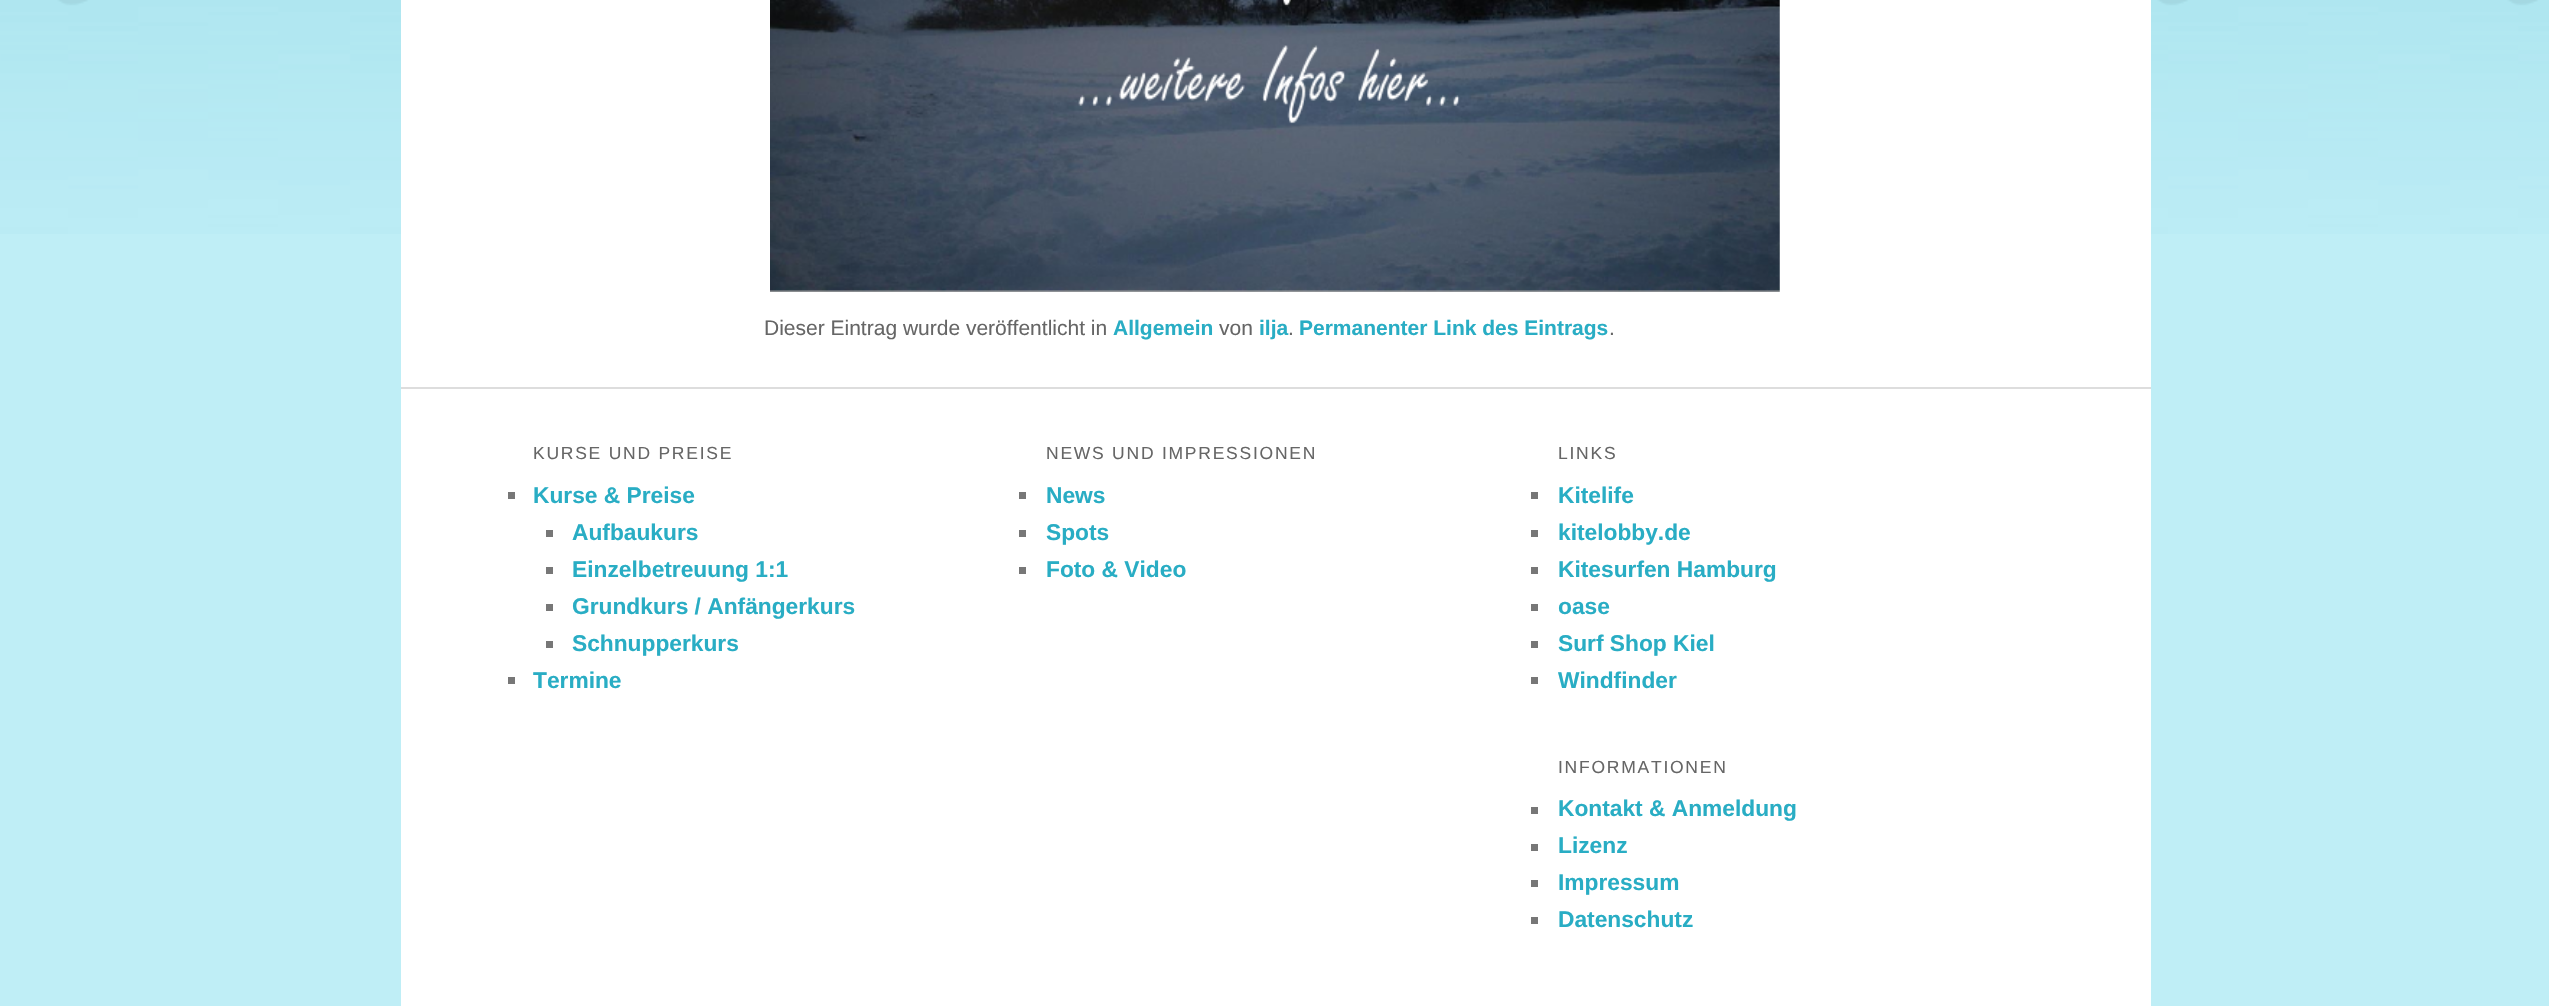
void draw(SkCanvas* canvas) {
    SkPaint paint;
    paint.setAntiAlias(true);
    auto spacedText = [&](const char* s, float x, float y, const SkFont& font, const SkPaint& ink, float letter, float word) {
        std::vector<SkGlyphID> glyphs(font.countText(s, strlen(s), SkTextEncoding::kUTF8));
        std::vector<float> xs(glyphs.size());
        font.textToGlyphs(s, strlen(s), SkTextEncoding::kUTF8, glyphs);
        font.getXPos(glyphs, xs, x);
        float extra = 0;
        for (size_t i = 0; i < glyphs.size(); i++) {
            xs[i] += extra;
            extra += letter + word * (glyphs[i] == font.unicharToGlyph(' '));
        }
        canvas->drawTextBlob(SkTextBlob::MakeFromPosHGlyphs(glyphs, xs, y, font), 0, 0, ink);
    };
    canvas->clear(0xFFBFEEF6);
    canvas->drawImageRect(SkImages::DeferredFromEncodedData(SkData::MakeFromFileName("img1.png")), SkRect::MakeXYWH(0, 0, 2549, 234), SkSamplingOptions());
    paint.setColor(0xFFFFFFFF);
    canvas->drawRect(SkRect::MakeXYWH(401, 0, 1750, 1006), paint);
    canvas->drawImageRect(SkImages::DeferredFromEncodedData(SkData::MakeFromFileName("img2.png")), SkRect::MakeXYWH(770, 0, 1010, 292), SkSamplingOptions());
    SkFont font1(fontMgr->matchFamilyStyle("Liberation Sans", SkFontStyle::Normal()), 21);
    font1.setSubpixel(true);
    paint.setColor(0xFF666666);
    canvas->drawString("Dieser Eintrag wurde veröffentlicht in", 764, 335, font1, paint);
    SkFont font2(fontMgr->matchFamilyStyle("Liberation Sans", SkFontStyle::Bold()), 21);
    font2.setSubpixel(true);
    paint.setColor(0xFF29ADC4);
    canvas->drawString("Allgemein", 1113, 335, font2, paint);
    paint.setColor(0xFF666666);
    canvas->drawString("von", 1219, 335, font1, paint);
    paint.setColor(0xFF29ADC4);
    canvas->drawString("ilja", 1259, 335, font2, paint);
    paint.setColor(0xFF666666);
    canvas->drawString(".", 1288, 335, font1, paint);
    paint.setColor(0xFF29ADC4);
    canvas->drawString("Permanenter Link des Eintrags", 1299, 335, font2, paint);
    paint.setColor(0xFF666666);
    canvas->drawString(".", 1609, 335, font1, paint);
    paint.setColor(0xFFDDDDDD);
    canvas->drawRect(SkRect::MakeXYWH(401, 387, 1750, 2), paint);
    SkFont font3(fontMgr->matchFamilyStyle("Liberation Sans", SkFontStyle::Normal()), 17.5f);
    font3.setSubpixel(true);
    paint.setColor(0xFF666666);
    spacedText("KURSE UND PREISE", 533, 459, font3, paint, 1.75f, 0);
    paint.setColor(0xFF777777);
    canvas->drawRect(SkRect::MakeXYWH(508, 492, 7, 7), paint);
    SkFont font4(fontMgr->matchFamilyStyle("Liberation Sans", SkFontStyle::Bold()), 22.75f);
    font4.setSubpixel(true);
    paint.setColor(0xFF29ADC4);
    canvas->drawString("Kurse & Preise", 533, 503, font4, paint);
    paint.setColor(0xFF777777);
    canvas->drawRect(SkRect::MakeXYWH(546, 530, 7, 7), paint);
    paint.setColor(0xFF29ADC4);
    canvas->drawString("Aufbaukurs", 572, 540, font4, paint);
    paint.setColor(0xFF777777);
    canvas->drawRect(SkRect::MakeXYWH(546, 567, 7, 7), paint);
    paint.setColor(0xFF29ADC4);
    canvas->drawString("Einzelbetreuung 1:1", 572, 577, font4, paint);
    paint.setColor(0xFF777777);
    canvas->drawRect(SkRect::MakeXYWH(546, 604, 7, 7), paint);
    paint.setColor(0xFF29ADC4);
    canvas->drawString("Grundkurs / Anfängerkurs", 572, 614, font4, paint);
    paint.setColor(0xFF777777);
    canvas->drawRect(SkRect::MakeXYWH(546, 641, 7, 7), paint);
    paint.setColor(0xFF29ADC4);
    canvas->drawString("Schnupperkurs", 572, 651, font4, paint);
    paint.setColor(0xFF777777);
    canvas->drawRect(SkRect::MakeXYWH(508, 677, 7, 7), paint);
    paint.setColor(0xFF29ADC4);
    canvas->drawString("Termine", 533, 688, font4, paint);
    paint.setColor(0xFF666666);
    spacedText("NEWS UND IMPRESSIONEN", 1046, 459, font3, paint, 1.75f, 0);
    paint.setColor(0xFF777777);
    canvas->drawRect(SkRect::MakeXYWH(1019, 492, 7, 7), paint);
    paint.setColor(0xFF29ADC4);
    canvas->drawString("News", 1046, 503, font4, paint);
    paint.setColor(0xFF777777);
    canvas->drawRect(SkRect::MakeXYWH(1019, 530, 7, 7), paint);
    paint.setColor(0xFF29ADC4);
    canvas->drawString("Spots", 1046, 540, font4, paint);
    paint.setColor(0xFF777777);
    canvas->drawRect(SkRect::MakeXYWH(1019, 567, 7, 7), paint);
    paint.setColor(0xFF29ADC4);
    canvas->drawString("Foto & Video", 1046, 577, font4, paint);
    paint.setColor(0xFF666666);
    spacedText("LINKS", 1558, 459, font3, paint, 1.75f, 0);
    paint.setColor(0xFF777777);
    canvas->drawRect(SkRect::MakeXYWH(1531, 492, 7, 7), paint);
    paint.setColor(0xFF29ADC4);
    canvas->drawString("Kitelife", 1558, 503, font4, paint);
    paint.setColor(0xFF777777);
    canvas->drawRect(SkRect::MakeXYWH(1531, 530, 7, 7), paint);
    paint.setColor(0xFF29ADC4);
    canvas->drawString("kitelobby.de", 1558, 540, font4, paint);
    paint.setColor(0xFF777777);
    canvas->drawRect(SkRect::MakeXYWH(1531, 567, 7, 7), paint);
    paint.setColor(0xFF29ADC4);
    canvas->drawString("Kitesurfen Hamburg", 1558, 577, font4, paint);
    paint.setColor(0xFF777777);
    canvas->drawRect(SkRect::MakeXYWH(1531, 604, 7, 7), paint);
    paint.setColor(0xFF29ADC4);
    canvas->drawString("oase", 1558, 614, font4, paint);
    paint.setColor(0xFF777777);
    canvas->drawRect(SkRect::MakeXYWH(1531, 641, 7, 7), paint);
    paint.setColor(0xFF29ADC4);
    canvas->drawString("Surf Shop Kiel", 1558, 651, font4, paint);
    paint.setColor(0xFF777777);
    canvas->drawRect(SkRect::MakeXYWH(1531, 677, 7, 7), paint);
    paint.setColor(0xFF29ADC4);
    canvas->drawString("Windfinder", 1558, 688, font4, paint);
    paint.setColor(0xFF666666);
    spacedText("INFORMATIONEN", 1558, 773, font3, paint, 1.75f, 0);
    paint.setColor(0xFF777777);
    canvas->drawRect(SkRect::MakeXYWH(1531, 807, 7, 7), paint);
    paint.setColor(0xFF29ADC4);
    canvas->drawString("Kontakt & Anmeldung", 1558, 816, font4, paint);
    paint.setColor(0xFF777777);
    canvas->drawRect(SkRect::MakeXYWH(1531, 844, 7, 7), paint);
    paint.setColor(0xFF29ADC4);
    canvas->drawString("Lizenz", 1558, 853, font4, paint);
    paint.setColor(0xFF777777);
    canvas->drawRect(SkRect::MakeXYWH(1531, 880, 7, 7), paint);
    paint.setColor(0xFF29ADC4);
    canvas->drawString("Impressum", 1558, 890, font4, paint);
    paint.setColor(0xFF777777);
    canvas->drawRect(SkRect::MakeXYWH(1531, 917, 7, 7), paint);
    paint.setColor(0xFF29ADC4);
    canvas->drawString("Datenschutz", 1558, 927, font4, paint);
}
